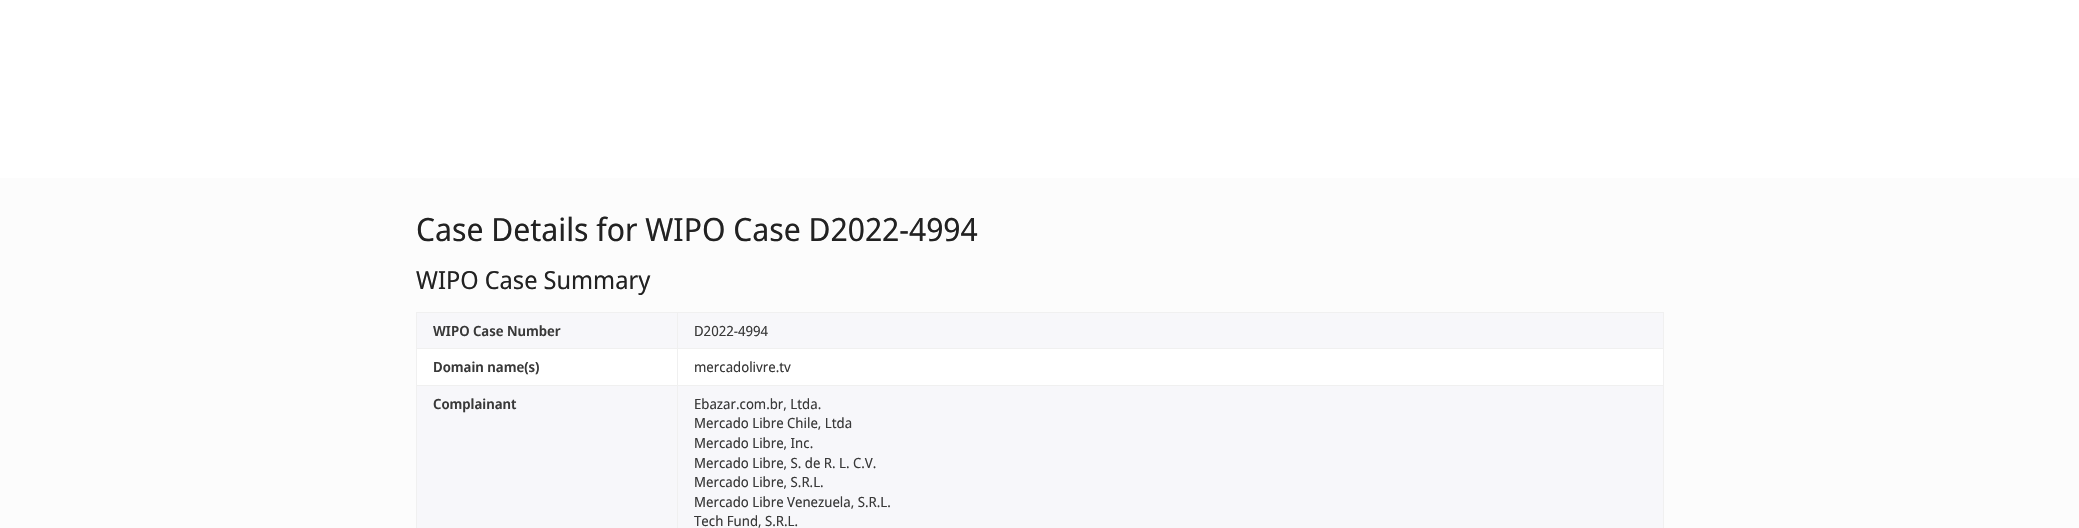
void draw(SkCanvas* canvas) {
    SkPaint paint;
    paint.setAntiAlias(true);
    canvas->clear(0xFFFCFCFC);
    paint.setColor(0xFFFFFFFF);
    canvas->drawRect(SkRect::MakeXYWH(0, 0, 2079, 178), paint);
    SkFont font1(fontMgr->matchFamilyStyle("Noto Sans Display", SkFontStyle::Normal()), 32);
    font1.setSubpixel(true);
    paint.setColor(0xFF222222);
    canvas->drawString("Case Details for WIPO Case D2022-4994", 416, 241, font1, paint);
    SkFont font2(fontMgr->matchFamilyStyle("Noto Sans Display", SkFontStyle::Normal()), 25);
    font2.setSubpixel(true);
    canvas->drawString("WIPO Case Summary", 416, 289, font2, paint);
    paint.setColor(0xFFFFFFFF);
    canvas->drawRect(SkRect::MakeXYWH(417, 349, 1246, 36), paint);
    paint.setColor(0xFFF0F0F0);
    canvas->drawRect(SkRect::MakeXYWH(416, 312, 1248, 1), paint);
    canvas->drawRect(SkRect::MakeXYWH(1663, 312, 1, 216), paint);
    canvas->drawRect(SkRect::MakeXYWH(416, 312, 1, 216), paint);
    paint.setColor(0xFFF7F7FA);
    canvas->drawRect(SkRect::MakeXYWH(417, 313, 260, 35), paint);
    SkFont font3(fontMgr->matchFamilyStyle("Noto Sans Display", SkFontStyle(600, SkFontStyle::kNormal_Width, SkFontStyle::kUpright_Slant)), 14);
    font3.setSubpixel(true);
    paint.setColor(0xFF393939);
    canvas->drawString("WIPO Case Number", 433, 336, font3, paint);
    paint.setColor(0xFFF7F7FA);
    canvas->drawRect(SkRect::MakeXYWH(678, 313, 985, 35), paint);
    SkFont font4(fontMgr->matchFamilyStyle("Noto Sans Display", SkFontStyle::Normal()), 14);
    font4.setSubpixel(true);
    paint.setColor(0xFF393939);
    canvas->drawString("D2022-4994", 694, 336, font4, paint);
    paint.setColor(0xFFF0F0F0);
    canvas->drawRect(SkRect::MakeXYWH(416, 348, 1248, 1), paint);
    canvas->drawRect(SkRect::MakeXYWH(416, 385, 1248, 1), paint);
    canvas->drawRect(SkRect::MakeXYWH(677, 385, 1, 143), paint);
    canvas->drawRect(SkRect::MakeXYWH(677, 312, 1, 74), paint);
    paint.setColor(0xFF393939);
    canvas->drawString("Domain name(s)", 433, 372, font3, paint);
    canvas->drawString("mercadolivre.tv", 694, 372, font4, paint);
    paint.setColor(0xFFF7F7FA);
    canvas->drawRect(SkRect::MakeXYWH(417, 386, 260, 142), paint);
    paint.setColor(0xFF393939);
    canvas->drawString("Complainant", 433, 409, font3, paint);
    paint.setColor(0xFFF7F7FA);
    canvas->drawRect(SkRect::MakeXYWH(678, 386, 985, 142), paint);
    paint.setColor(0xFF393939);
    canvas->drawString("Ebazar.com.br, Ltda.", 694, 409, font4, paint);
    canvas->drawString("Mercado Libre Chile, Ltda", 694, 428, font4, paint);
    canvas->drawString("Mercado Libre, Inc.", 694, 448, font4, paint);
    canvas->drawString("Mercado Libre, S. de R. L. C.V.", 694, 468, font4, paint);
    canvas->drawString("Mercado Libre, S.R.L.", 694, 487, font4, paint);
    canvas->drawString("Mercado Libre Venezuela, S.R.L.", 694, 507, font4, paint);
    canvas->drawString("Tech Fund, S.R.L.", 694, 526, font4, paint);
}
